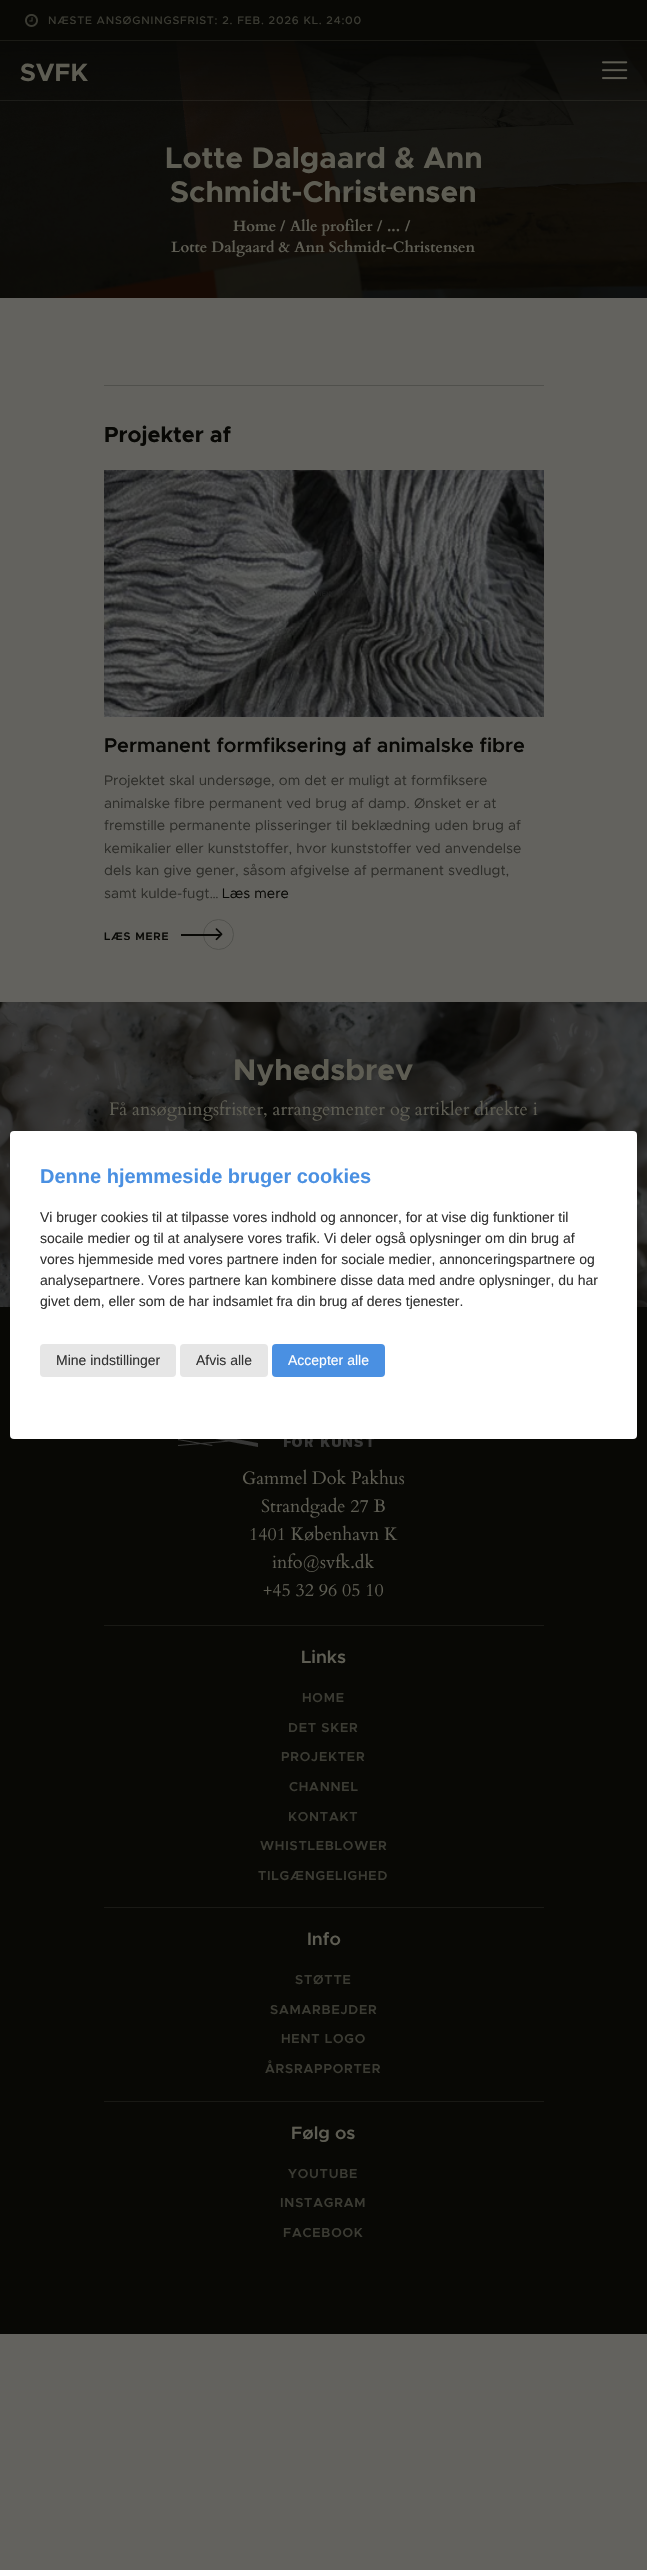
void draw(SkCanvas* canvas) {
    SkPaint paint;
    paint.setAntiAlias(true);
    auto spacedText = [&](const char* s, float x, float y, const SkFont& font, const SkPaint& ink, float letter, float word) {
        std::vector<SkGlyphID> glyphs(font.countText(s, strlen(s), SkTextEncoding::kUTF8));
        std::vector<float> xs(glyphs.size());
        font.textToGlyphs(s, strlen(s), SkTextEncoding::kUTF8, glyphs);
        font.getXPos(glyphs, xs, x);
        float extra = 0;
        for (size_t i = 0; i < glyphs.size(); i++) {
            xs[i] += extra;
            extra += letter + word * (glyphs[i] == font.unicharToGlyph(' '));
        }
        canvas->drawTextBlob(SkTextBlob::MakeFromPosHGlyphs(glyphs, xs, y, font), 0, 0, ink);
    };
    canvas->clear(0xFF63625E);
    paint.setColor(0xFF080805);
    canvas->drawRect(SkRect::MakeXYWH(0, 0, 647, 40), paint);
    canvas->drawImageRect(SkImages::DeferredFromEncodedData(SkData::MakeFromFileName("img1.png")), SkRect::MakeXYWH(25, 14, 13, 13), SkSamplingOptions());
    SkFont font1(fontMgr->matchFamilyStyle("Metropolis", SkFontStyle(500, SkFontStyle::kNormal_Width, SkFontStyle::kUpright_Slant)), 11);
    font1.setSubpixel(true);
    paint.setColor(0xFF3B3B33);
    spacedText("NÆSTE ANSØGNINGSFRIST: 2. FEB. 2026 KL. 24:00", 48, 24, font1, paint, 0.8f, 0);
    canvas->drawImageRect(SkImages::DeferredFromEncodedData(SkData::MakeFromFileName("img2.png")), SkRect::MakeXYWH(0, 40, 647, 258), SkSamplingOptions());
    paint.setColor(0x335E5D53);
    canvas->drawRect(SkRect::MakeXYWH(0, 40, 647, 1), paint);
    canvas->drawRect(SkRect::MakeXYWH(0, 100, 647, 1), paint);
    SkFont font2(fontMgr->matchFamilyStyle("Metropolis", SkFontStyle::Bold()), 25);
    font2.setSubpixel(true);
    paint.setColor(0xFF5E5D53);
    canvas->drawString("SVFK", 20, 81, font2, paint);
    canvas->drawImageRect(SkImages::DeferredFromEncodedData(SkData::MakeFromFileName("img3.png")), SkRect::MakeXYWH(602, 61, 26, 19), SkSamplingOptions());
    SkFont font3(fontMgr->matchFamilyStyle("Metropolis", SkFontStyle::Bold()), 30);
    font3.setSubpixel(true);
    canvas->drawString("Lotte Dalgaard & Ann", 165, 168, font3, paint);
    canvas->drawString("Schmidt-Christensen", 170, 202, font3, paint);
    SkFont font4(fontMgr->matchFamilyStyle("Cardo", SkFontStyle::Bold()), 15);
    font4.setSubpixel(true);
    canvas->drawString("Home", 233, 231, font4, paint);
    canvas->drawString("/", 280, 231, font4, paint);
    canvas->drawString("Alle profiler", 290, 231, font4, paint);
    canvas->drawString("/", 377, 231, font4, paint);
    canvas->drawString("...", 387, 231, font4, paint);
    canvas->drawString("/", 405, 231, font4, paint);
    canvas->drawString("Lotte Dalgaard & Ann Schmidt-Christensen", 171, 252, font4, paint);
    paint.setColor(0xFF50504C);
    canvas->drawRect(SkRect::MakeXYWH(104, 385, 440, 1), paint);
    SkFont font5(fontMgr->matchFamilyStyle("Metropolis", SkFontStyle::Bold()), 22);
    font5.setSubpixel(true);
    paint.setColor(0xFF080805);
    canvas->drawString("Projekter af", 104, 442, font5, paint);
    canvas->drawImageRect(SkImages::DeferredFromEncodedData(SkData::MakeFromFileName("img4.png")), SkRect::MakeXYWH(104, 470, 440, 247), SkSamplingOptions());
    SkFont font6(fontMgr->matchFamilyStyle("Metropolis", SkFontStyle(600, SkFontStyle::kNormal_Width, SkFontStyle::kUpright_Slant)), 6.5f);
    font6.setSubpixel(true);
    paint.setColor(0xFF1B1C1C);
    spacedText("VIEW", 314, 596, font6, paint, 0.5f, 0);
    SkFont font7(fontMgr->matchFamilyStyle("Metropolis", SkFontStyle(600, SkFontStyle::kNormal_Width, SkFontStyle::kUpright_Slant)), 20);
    font7.setSubpixel(true);
    paint.setColor(0xFF080805);
    canvas->drawString("Permanent formfiksering af animalske fibre", 104, 752, font7, paint);
    SkFont font8(fontMgr->matchFamilyStyle("Metropolis", SkFontStyle::Normal()), 14);
    font8.setSubpixel(true);
    paint.setColor(0xFF2C2C28);
    canvas->drawString("Projektet skal undersøge, om det er muligt at formfiksere", 104, 785, font8, paint);
    canvas->drawString("animalske fibre permanent ved brug af damp. Ønsket er at", 104, 808, font8, paint);
    canvas->drawString("fremstille permanente plisseringer til beklædning uden brug af", 104, 830, font8, paint);
    canvas->drawString("kemikalier eller kunststoffer, hvor kunststoffer ved anvendelse", 104, 853, font8, paint);
    canvas->drawString("dels kan give gener, såsom afgivelse af permanent svedlugt,", 104, 875, font8, paint);
    canvas->drawString("samt kulde-fugt…", 104, 898, font8, paint);
    paint.setColor(0xFF080805);
    canvas->drawString("Læs mere", 222, 898, font8, paint);
    SkFont font9(fontMgr->matchFamilyStyle("Metropolis", SkFontStyle(600, SkFontStyle::kNormal_Width, SkFontStyle::kUpright_Slant)), 11);
    font9.setSubpixel(true);
    spacedText("LÆS MERE", 104, 940, font9, paint, 0.8f, 0);
    paint.setStyle(SkPaint::kStroke_Style);
    paint.setStrokeWidth(1);
    paint.setColor(0xFF50504C);
    canvas->drawCircle(218.5f, 934.5f, 15, paint);
    canvas->drawImageRect(SkImages::DeferredFromEncodedData(SkData::MakeFromFileName("img5.png")), SkRect::MakeXYWH(215, 928, 8, 13), SkSamplingOptions());
    paint.setStyle(SkPaint::kFill_Style);
    paint.setColor(0xFF080805);
    canvas->drawPath(SkPathBuilder().moveTo(181, 934).lineTo(220, 934).cubicTo(220.5f, 934, 221, 934.5f, 221, 935).cubicTo(221, 935.5f, 220.5f, 936, 220, 936).lineTo(181, 936).close().detach(), paint);
    canvas->drawRect(SkRect::MakeXYWH(0, 1307, 647, 1027), paint);
    canvas->drawImageRect(SkImages::DeferredFromEncodedData(SkData::MakeFromFileName("img6.png")), SkRect::MakeXYWH(0, 1002, 647, 305), SkSamplingOptions());
    paint.setColor(0xFF5E5D53);
    canvas->drawString("Nyhedsbrev", 233, 1080, font3, paint);
    SkFont font10(fontMgr->matchFamilyStyle("Cardo", SkFontStyle::Normal()), 18.2f);
    font10.setSubpixel(true);
    canvas->drawString("Få ansøgningsfrister, arrangementer og artikler direkte i", 109, 1115, font10, paint);
    canvas->drawImageRect(SkImages::DeferredFromEncodedData(SkData::MakeFromFileName("img7.png")), SkRect::MakeXYWH(178, 1439, 196, 8), SkSamplingOptions());
    SkFont font11(fontMgr->matchFamilyStyle("Cardo", SkFontStyle::Normal()), 18);
    font11.setSubpixel(true);
    canvas->drawString("Gammel Dok Pakhus", 242, 1484, font11, paint);
    canvas->drawString("Strandgade 27 B", 261, 1512, font11, paint);
    canvas->drawString("1401 København K", 249, 1540, font11, paint);
    canvas->drawString("info@svfk.dk", 272, 1568, font11, paint);
    canvas->drawString("+45 32 96 05 10", 263, 1596, font11, paint);
    paint.setColor(0xFF191915);
    canvas->drawRect(SkRect::MakeXYWH(104, 1625, 440, 1), paint);
    SkFont font12(fontMgr->matchFamilyStyle("Metropolis", SkFontStyle(600, SkFontStyle::kNormal_Width, SkFontStyle::kUpright_Slant)), 18);
    font12.setSubpixel(true);
    paint.setColor(0xFF5E5D53);
    canvas->drawString("Links", 301, 1663, font12, paint);
    SkFont font13(fontMgr->matchFamilyStyle("Metropolis", SkFontStyle(600, SkFontStyle::kNormal_Width, SkFontStyle::kUpright_Slant)), 13);
    font13.setSubpixel(true);
    paint.setColor(0xFF3B3B33);
    spacedText("HOME", 302, 1702, font13, paint, 0.8f, 0);
    spacedText("DET SKER", 288, 1732, font13, paint, 0.8f, 0);
    spacedText("PROJEKTER", 281, 1761, font13, paint, 0.8f, 0);
    spacedText("CHANNEL", 289, 1791, font13, paint, 0.8f, 0);
    spacedText("KONTAKT", 288, 1821, font13, paint, 0.8f, 0);
    spacedText("WHISTLEBLOWER", 260, 1850, font13, paint, 0.8f, 0);
    spacedText("TILGÆNGELIGHED", 258, 1880, font13, paint, 0.8f, 0);
    paint.setColor(0xFF191915);
    canvas->drawRect(SkRect::MakeXYWH(104, 1907, 440, 1), paint);
    paint.setColor(0xFF5E5D53);
    canvas->drawString("Info", 307, 1945, font12, paint);
    paint.setColor(0xFF3B3B33);
    spacedText("STØTTE", 295, 1984, font13, paint, 0.8f, 0);
    spacedText("SAMARBEJDER", 270, 2014, font13, paint, 0.8f, 0);
    spacedText("HENT LOGO", 281, 2043, font13, paint, 0.8f, 0);
    spacedText("ÅRSRAPPORTER", 265, 2073, font13, paint, 0.8f, 0);
    paint.setColor(0xFF191915);
    canvas->drawRect(SkRect::MakeXYWH(104, 2101, 440, 1), paint);
    paint.setColor(0xFF5E5D53);
    canvas->drawString("Følg os", 291, 2139, font12, paint);
    paint.setColor(0xFF3B3B33);
    spacedText("YOUTUBE", 288, 2178, font13, paint, 0.8f, 0);
    spacedText("INSTAGRAM", 280, 2207, font13, paint, 0.8f, 0);
    spacedText("FACEBOOK", 283, 2237, font13, paint, 0.8f, 0);
    paint.setColor(0xFFFFFFFF);
    canvas->drawRoundRect(SkRect::MakeXYWH(10, 1131, 627, 308), 4, 4, paint);
    SkFont font14(fontMgr->matchFamilyStyle("Liberation Sans", SkFontStyle::Bold()), 20);
    font14.setSubpixel(true);
    paint.setColor(0xFF4A90E2);
    canvas->drawString("Denne hjemmeside bruger cookies", 40, 1183, font14, paint);
    SkFont font15(fontMgr->matchFamilyStyle("Liberation Sans", SkFontStyle::Normal()), 14);
    font15.setSubpixel(true);
    paint.setColor(0xFF333333);
    canvas->drawString("Vi bruger cookies til at tilpasse vores indhold og annoncer, for at vise dig funktioner til", 40, 1222, font15, paint);
    canvas->drawString("socaile medier og til at analysere vores trafik. Vi deler også oplysninger om din brug af", 40, 1243, font15, paint);
    canvas->drawString("vores hjemmeside med vores partnere inden for sociale medier, annonceringspartnere og", 40, 1264, font15, paint);
    canvas->drawString("analysepartnere. Vores partnere kan kombinere disse data med andre oplysninger, du har", 40, 1285, font15, paint);
    canvas->drawString("givet dem, eller som de har indsamlet fra din brug af deres tjenester.", 40, 1306, font15, paint);
    paint.setColor(0xFFE6E6E6);
    canvas->drawRoundRect(SkRect::MakeXYWH(40, 1344, 136, 33), 4, 4, paint);
    paint.setColor(0xFF333333);
    canvas->drawString("Mine indstillinger", 56, 1365, font15, paint);
    paint.setColor(0xFFE6E6E6);
    canvas->drawRoundRect(SkRect::MakeXYWH(180, 1344, 88, 33), 4, 4, paint);
    paint.setColor(0xFF333333);
    canvas->drawString("Afvis alle", 196, 1365, font15, paint);
    paint.setColor(0xFF4A90E2);
    canvas->drawRoundRect(SkRect::MakeXYWH(272, 1344, 113, 33), 4, 4, paint);
    paint.setColor(0xFFFFFFFF);
    canvas->drawString("Accepter alle", 288, 1365, font15, paint);
}
